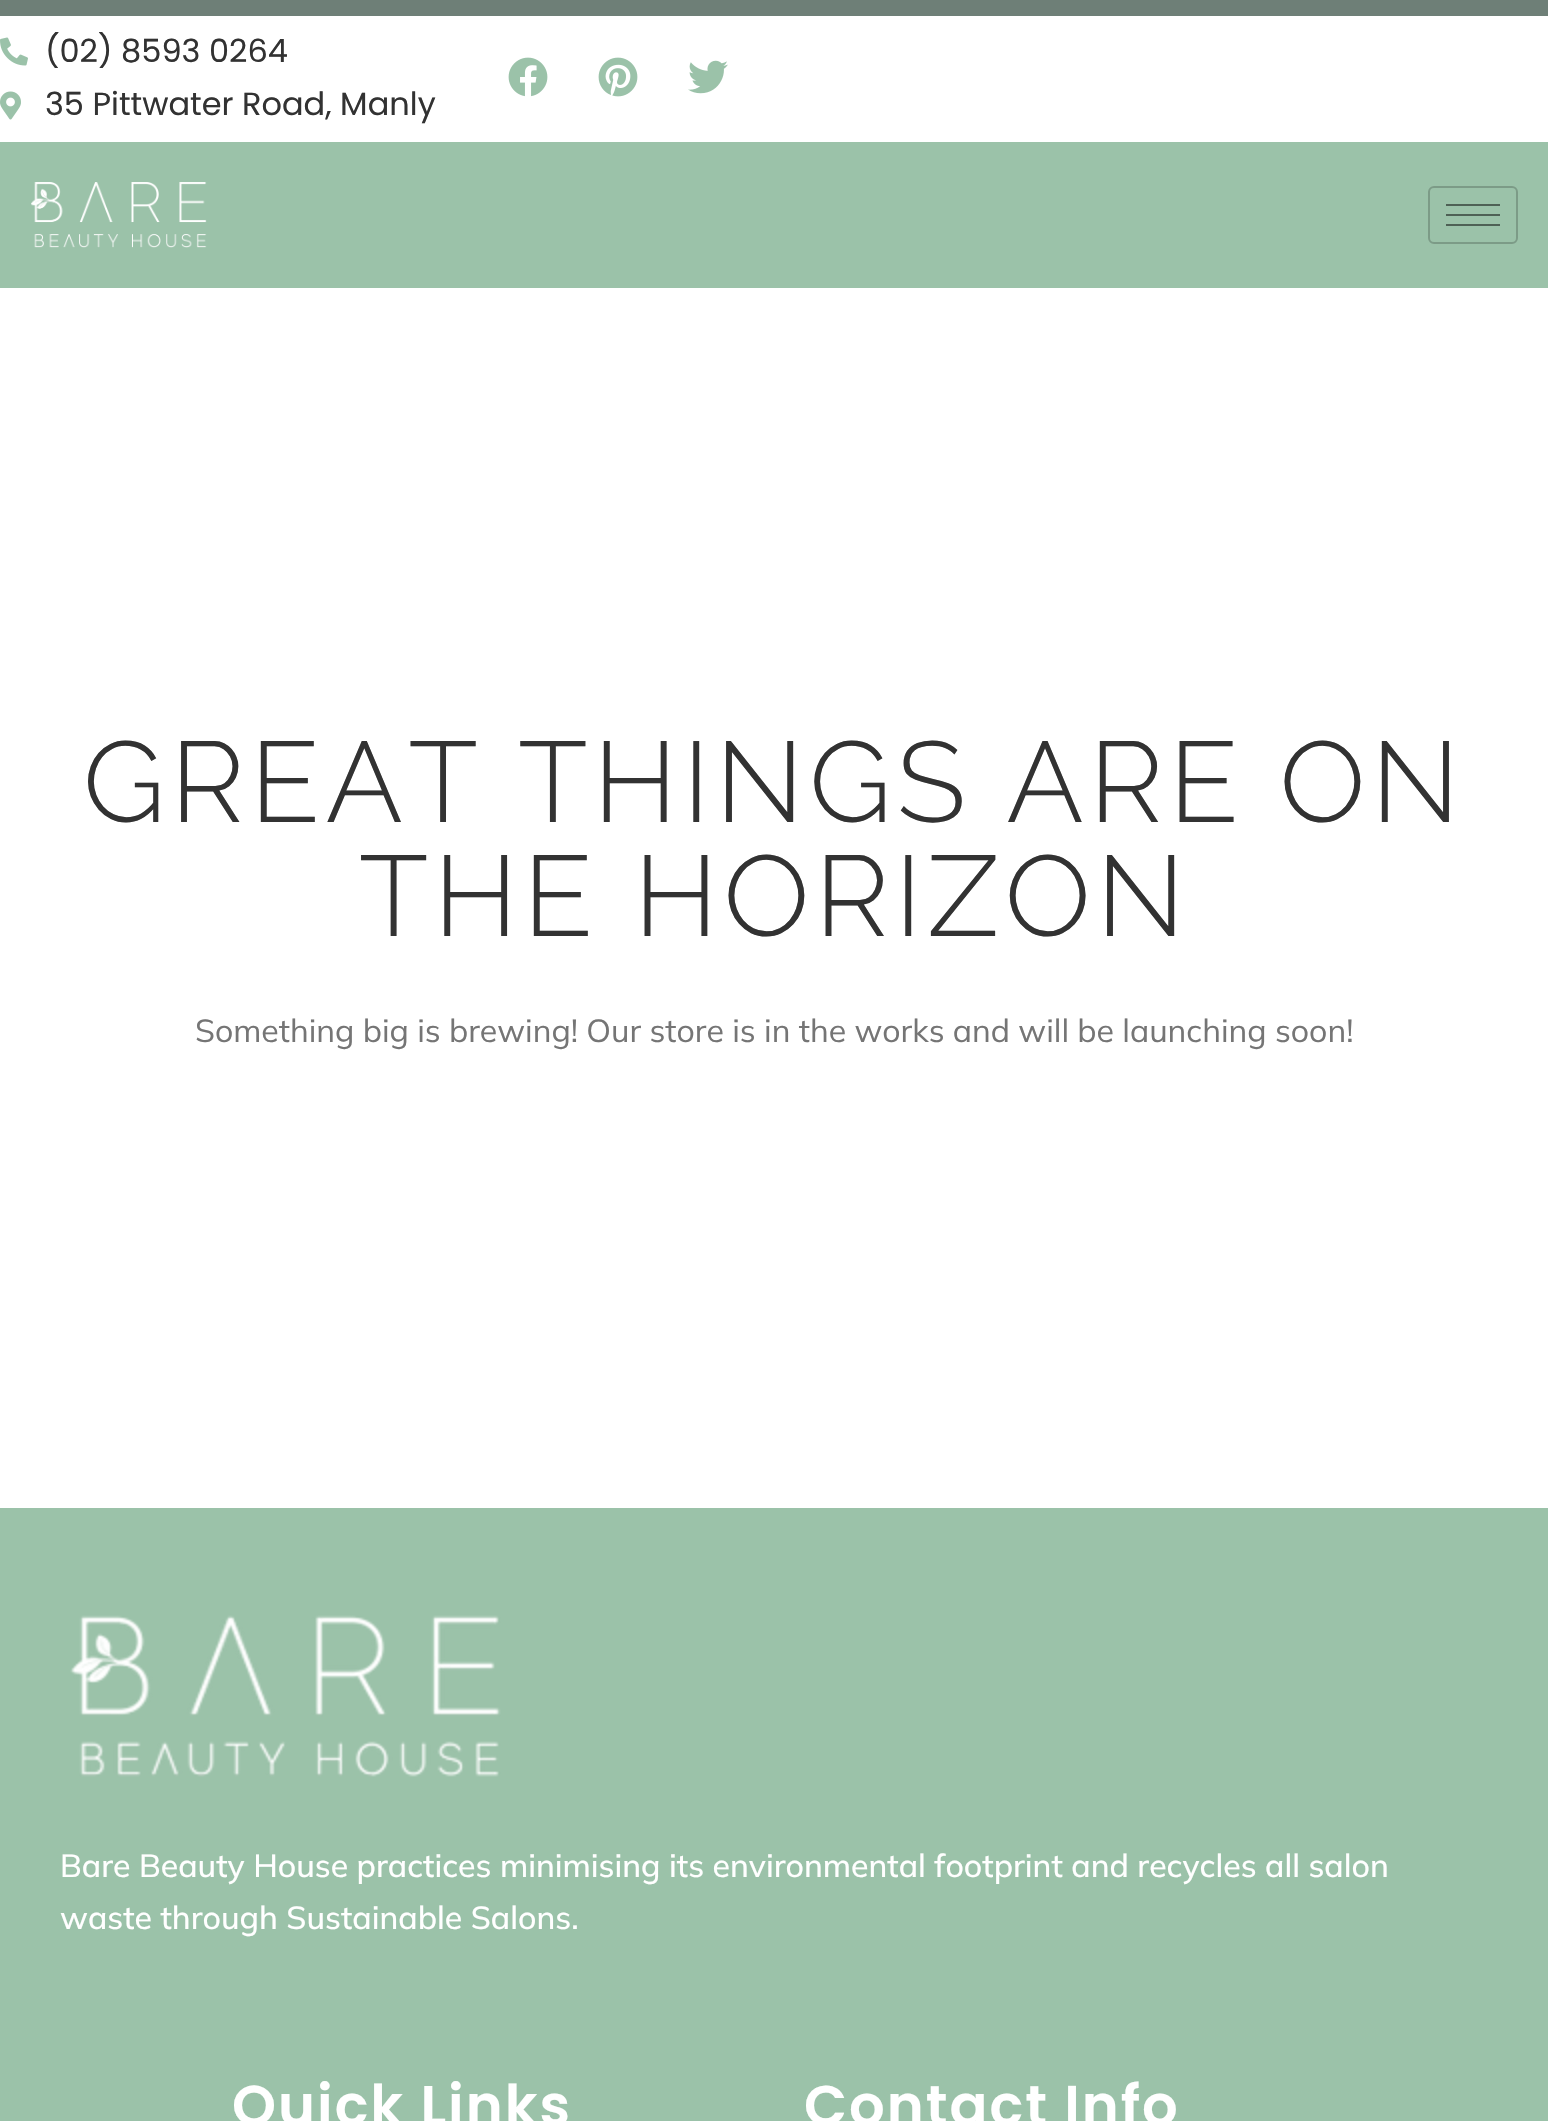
void draw(SkCanvas* canvas) {
    SkPaint paint;
    paint.setAntiAlias(true);
    auto spacedText = [&](const char* s, float x, float y, const SkFont& font, const SkPaint& ink, float letter, float word) {
        std::vector<SkGlyphID> glyphs(font.countText(s, strlen(s), SkTextEncoding::kUTF8));
        std::vector<float> xs(glyphs.size());
        font.textToGlyphs(s, strlen(s), SkTextEncoding::kUTF8, glyphs);
        font.getXPos(glyphs, xs, x);
        float extra = 0;
        for (size_t i = 0; i < glyphs.size(); i++) {
            xs[i] += extra;
            extra += letter + word * (glyphs[i] == font.unicharToGlyph(' '));
        }
        canvas->drawTextBlob(SkTextBlob::MakeFromPosHGlyphs(glyphs, xs, y, font), 0, 0, ink);
    };
    canvas->clear(0xFFFFFFFF);
    paint.setColor(0xFF6E7F77);
    canvas->drawRect(SkRect::MakeXYWH(0, 0, 1548, 16), paint);
    canvas->drawImageRect(SkImages::DeferredFromEncodedData(SkData::MakeFromFileName("img1.png")), SkRect::MakeXYWH(0, 37, 28, 29), SkSamplingOptions());
    SkFont font1(fontMgr->matchFamilyStyle("Poppins", SkFontStyle::Normal()), 32);
    font1.setSubpixel(true);
    paint.setColor(0xFF323232);
    canvas->drawString("(02) 8593 0264", 45, 62, font1, paint);
    canvas->drawImageRect(SkImages::DeferredFromEncodedData(SkData::MakeFromFileName("img2.png")), SkRect::MakeXYWH(0, 91, 21, 29), SkSamplingOptions());
    canvas->drawString("35 Pittwater Road, Manly", 45, 115, font1, paint);
    canvas->drawImageRect(SkImages::DeferredFromEncodedData(SkData::MakeFromFileName("img3.png")), SkRect::MakeXYWH(508, 57, 40, 40), SkSamplingOptions());
    canvas->drawImageRect(SkImages::DeferredFromEncodedData(SkData::MakeFromFileName("img4.png")), SkRect::MakeXYWH(598, 57, 40, 40), SkSamplingOptions());
    canvas->drawImageRect(SkImages::DeferredFromEncodedData(SkData::MakeFromFileName("img5.png")), SkRect::MakeXYWH(688, 60, 40, 34), SkSamplingOptions());
    paint.setColor(0xFF9BC2A9);
    canvas->drawRect(SkRect::MakeXYWH(0, 142, 1548, 146), paint);
    canvas->drawImageRect(SkImages::DeferredFromEncodedData(SkData::MakeFromFileName("img6.png")), SkRect::MakeXYWH(31, 182, 176, 66), SkSamplingOptions());
    paint.setStyle(SkPaint::kStroke_Style);
    paint.setStrokeWidth(2);
    paint.setColor(0xFF7C9B87);
    canvas->drawRoundRect(SkRect::MakeXYWH(1429, 187, 88, 56), 5, 5, paint);
    paint.setStyle(SkPaint::kFill_Style);
    paint.setColor(0xFF4E6155);
    canvas->drawRect(SkRect::MakeXYWH(1446, 204, 54, 2), paint);
    canvas->drawRect(SkRect::MakeXYWH(1446, 214, 54, 2), paint);
    canvas->drawRect(SkRect::MakeXYWH(1446, 224, 54, 2), paint);
    SkFont font2(fontMgr->matchFamilyStyle("Raleway", SkFontStyle(300, SkFontStyle::kNormal_Width, SkFontStyle::kUpright_Slant)), 114);
    font2.setSubpixel(true);
    paint.setColor(0xFF323232);
    spacedText("GREAT THINGS ARE ON", 83, 822, font2, paint, 5.75f, 0);
    spacedText("THE HORIZON", 359, 936, font2, paint, 5.75f, 0);
    SkFont font3(fontMgr->matchFamilyStyle("Mulish", SkFontStyle::Normal()), 32);
    font3.setSubpixel(true);
    paint.setColor(0xFF757575);
    canvas->drawString("Something big is brewing! Our store is in the works and will be launching soon!", 195, 1042, font3, paint);
    paint.setColor(0xFF9BC2A9);
    canvas->drawRect(SkRect::MakeXYWH(0, 1508, 1548, 613), paint);
    canvas->drawImageRect(SkImages::DeferredFromEncodedData(SkData::MakeFromFileName("img7.png")), SkRect::MakeXYWH(70, 1615, 431, 162), SkSamplingOptions());
    SkFont font4(fontMgr->matchFamilyStyle("Mulish", SkFontStyle(500, SkFontStyle::kNormal_Width, SkFontStyle::kUpright_Slant)), 32);
    font4.setSubpixel(true);
    paint.setColor(0xFFFFFFFF);
    canvas->drawString("Bare Beauty House practices minimising its environmental footprint and recycles all salon", 60, 1877, font4, paint);
    canvas->drawString("waste through Sustainable Salons.", 60, 1929, font4, paint);
    SkFont font5(fontMgr->matchFamilyStyle("Poppins", SkFontStyle(600, SkFontStyle::kNormal_Width, SkFontStyle::kUpright_Slant)), 56);
    font5.setSubpixel(true);
    spacedText("Quick Links", 232, 2125, font5, paint, 2, 0);
    spacedText("Contact Info", 804, 2125, font5, paint, 2, 0);
}
